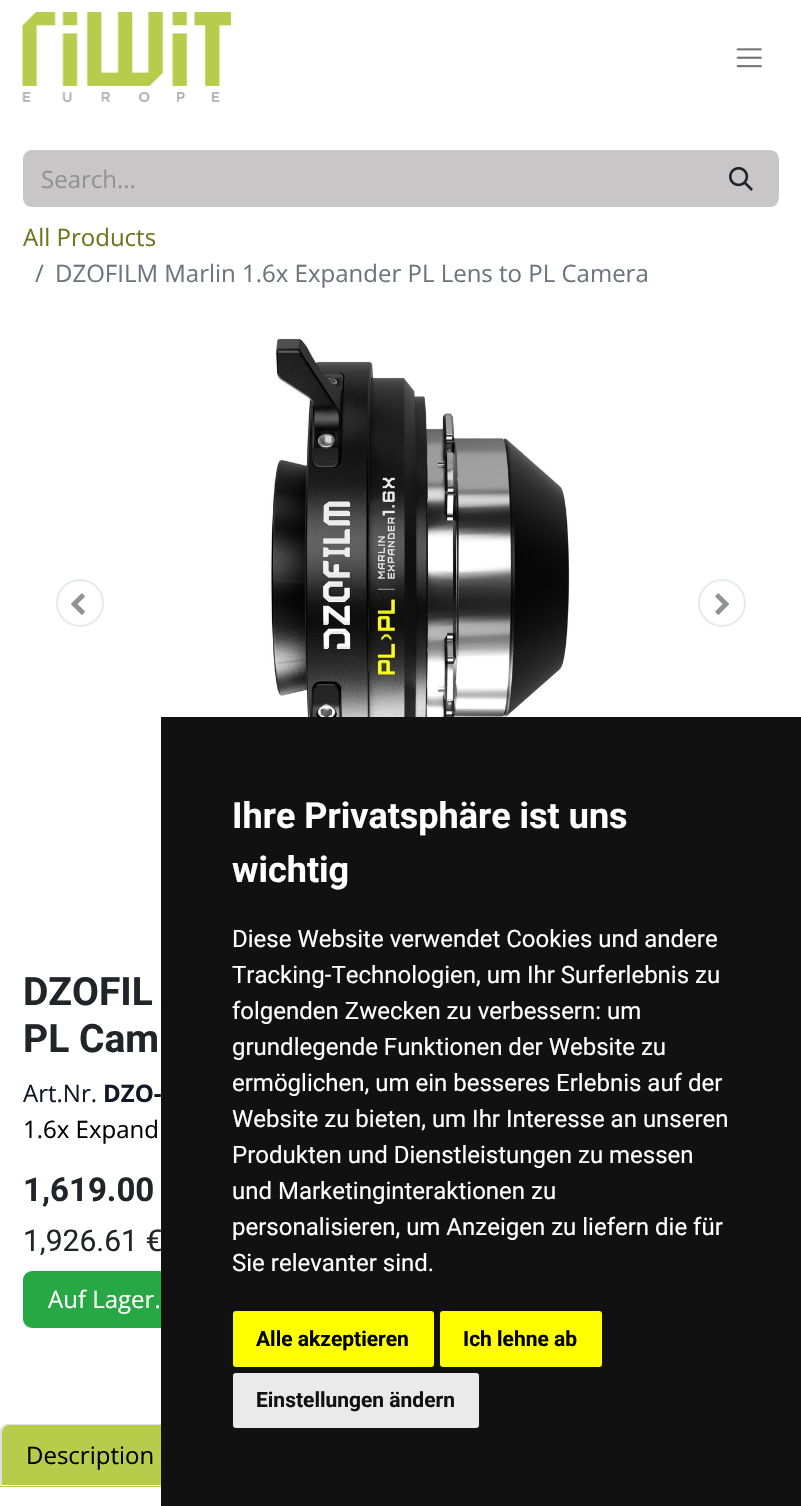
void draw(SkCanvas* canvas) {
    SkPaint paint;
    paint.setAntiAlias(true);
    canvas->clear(0xFFFFFFFF);
    canvas->drawImageRect(SkImages::DeferredFromEncodedData(SkData::MakeFromFileName("img1.png")), SkRect::MakeXYWH(22, 12, 209, 90), SkSamplingOptions());
    canvas->drawImageRect(SkImages::DeferredFromEncodedData(SkData::MakeFromFileName("img2.png")), SkRect::MakeXYWH(736, 48, 26, 20), SkSamplingOptions());
    paint.setColor(0xFFC8C6C6);
    canvas->drawPath(SkPathBuilder().moveTo(32, 150).lineTo(705, 150).lineTo(705, 207).lineTo(32, 207).cubicTo(27, 207, 23, 203, 23, 198).lineTo(23, 159).cubicTo(23, 154, 27, 150, 32, 150).close().detach(), paint);
    SkFont font1(fontMgr->matchFamilyStyle("Open Sans", SkFontStyle::Normal()), 24);
    font1.setSubpixel(true);
    paint.setColor(0xFF909294);
    canvas->drawString("Search...", 41, 188, font1, paint);
    paint.setColor(0xFFC8C6C6);
    canvas->drawPath(SkPathBuilder().moveTo(705, 151).lineTo(770, 151).cubicTo(774.5f, 151, 778, 154.5f, 778, 159).lineTo(778, 198).cubicTo(778, 202.5f, 774.5f, 206, 770, 206).lineTo(705, 206).close().detach(), paint);
    paint.setStyle(SkPaint::kStroke_Style);
    paint.setStrokeWidth(2);
    canvas->drawPath(SkPathBuilder().moveTo(705, 151).lineTo(770, 151).cubicTo(774.5f, 151, 778, 154.5f, 778, 159).lineTo(778, 198).cubicTo(778, 202.5f, 774.5f, 206, 770, 206).lineTo(705, 206).close().detach(), paint);
    canvas->drawImageRect(SkImages::DeferredFromEncodedData(SkData::MakeFromFileName("img3.png")), SkRect::MakeXYWH(729, 166, 24, 25), SkSamplingOptions());
    paint.setStyle(SkPaint::kFill_Style);
    paint.setColor(0xFF6F741E);
    canvas->drawString("All Products", 23, 246, font1, paint);
    paint.setColor(0xFF6C757D);
    canvas->drawString("/", 35, 282, font1, paint);
    canvas->drawString("DZOFILM Marlin 1.6x Expander PL Lens to PL Camera", 55, 282, font1, paint);
    paint.setStyle(SkPaint::kStroke_Style);
    paint.setColor(0xFFE7EAED);
    canvas->drawCircle(80, 603, 23, paint);
    canvas->drawImageRect(SkImages::DeferredFromEncodedData(SkData::MakeFromFileName("img4.png")), SkRect::MakeXYWH(71, 593, 14, 22), SkSamplingOptions());
    canvas->drawImageRect(SkImages::DeferredFromEncodedData(SkData::MakeFromFileName("img5.png")), SkRect::MakeXYWH(270, 338, 300, 379), SkSamplingOptions());
    canvas->drawCircle(722, 603, 23, paint);
    canvas->drawImageRect(SkImages::DeferredFromEncodedData(SkData::MakeFromFileName("img6.png")), SkRect::MakeXYWH(715, 593, 14, 22), SkSamplingOptions());
    SkFont font2(fontMgr->matchFamilyStyle("Roboto", SkFontStyle::Bold()), 39);
    font2.setSubpixel(true);
    paint.setStyle(SkPaint::kFill_Style);
    paint.setColor(0xFF212529);
    canvas->drawString("DZOFIL", 23, 1005, font2, paint);
    canvas->drawString("PL Cam", 23, 1052, font2, paint);
    paint.setColor(0xFF111827);
    canvas->drawString("Art.Nr.", 23, 1102, font1, paint);
    SkFont font3(fontMgr->matchFamilyStyle("Open Sans", SkFontStyle::Bold()), 24);
    font3.setSubpixel(true);
    canvas->drawString("DZO-", 103, 1102, font3, paint);
    paint.setColor(0xFF000000);
    canvas->drawString("1.6x Expand", 23, 1138, font1, paint);
    SkFont font4(fontMgr->matchFamilyStyle("Roboto", SkFontStyle::Bold()), 33);
    font4.setSubpixel(true);
    paint.setColor(0xFF212529);
    canvas->drawString("1,619.00", 23, 1201, font4, paint);
    SkFont font5(fontMgr->matchFamilyStyle("Roboto", SkFontStyle::Normal()), 30);
    font5.setSubpixel(true);
    canvas->drawString("1,926.61 €", 23, 1251, font5, paint);
    paint.setColor(0xFF28A745);
    canvas->drawRoundRect(SkRect::MakeXYWH(24, 1272, 580, 55), 8, 8, paint);
    paint.setStyle(SkPaint::kStroke_Style);
    canvas->drawRoundRect(SkRect::MakeXYWH(24, 1272, 580, 55), 8, 8, paint);
    paint.setStyle(SkPaint::kFill_Style);
    paint.setColor(0xFFFFFFFF);
    canvas->drawString("Auf Lager.", 48, 1308, font1, paint);
    paint.setColor(0xFFB8CC4B);
    canvas->drawPath(SkPathBuilder().moveTo(9, 1424).lineTo(170, 1424).cubicTo(175, 1424, 179, 1428, 179, 1433).lineTo(179, 1487).lineTo(0, 1487).lineTo(0, 1433).cubicTo(0, 1428, 4, 1424, 9, 1424).close().detach(), paint);
    paint.setColor(0xFFDEE2E6);
    canvas->drawPath(SkPathBuilder().moveTo(10, 1424).cubicTo(7, 1424, 5, 1425, 3, 1426).lineTo(4, 1428).cubicTo(5, 1426, 7, 1425, 10, 1425).lineTo(169, 1425).cubicTo(171, 1425, 173, 1426, 174, 1428).lineTo(175, 1427).cubicTo(174, 1425, 172, 1424, 169, 1424).close().detach(), paint);
    paint.setColor(0xFFFFFFFF);
    canvas->drawPath(SkPathBuilder().moveTo(178, 1486).lineTo(177, 1485).lineTo(2, 1485).lineTo(2, 1484).lineTo(0, 1486).close().detach(), paint);
    paint.setColor(0xFFDEE2E6);
    canvas->drawPath(SkPathBuilder().moveTo(0, 1433).lineTo(0, 1486).lineTo(2, 1484).lineTo(2, 1433).cubicTo(2, 1431, 3, 1429, 4, 1428).lineTo(3, 1426).cubicTo(1, 1428, 0, 1430, 0, 1433).close().detach(), paint);
    paint.setColor(0xFF000000);
    canvas->drawString("Description", 26, 1464, font1, paint);
    paint.setColor(0xFF111111);
    canvas->drawRect(SkRect::MakeXYWH(161, 717, 640, 789), paint);
    SkFont font6(fontMgr->matchFamilyStyle("Roboto", SkFontStyle::Bold()), 36);
    font6.setSubpixel(true);
    paint.setColor(0xFFFFFFFF);
    canvas->drawString("Ihre Privatsphäre ist uns", 232, 828, font6, paint);
    canvas->drawString("wichtig", 232, 882, font6, paint);
    SkFont font7(fontMgr->matchFamilyStyle("Roboto", SkFontStyle::Normal()), 24);
    font7.setSubpixel(true);
    canvas->drawString("Diese Website verwendet Cookies und andere", 232, 947, font7, paint);
    canvas->drawString("Tracking-Technologien, um Ihr Surferlebnis zu", 232, 983, font7, paint);
    canvas->drawString("folgenden Zwecken zu verbessern: um", 232, 1019, font7, paint);
    canvas->drawString("grundlegende Funktionen der Website zu", 232, 1055, font7, paint);
    canvas->drawString("ermöglichen, um ein besseres Erlebnis auf der", 232, 1091, font7, paint);
    canvas->drawString("Website zu bieten, um Ihr Interesse an unseren", 232, 1127, font7, paint);
    canvas->drawString("Produkten und Dienstleistungen zu messen", 232, 1163, font7, paint);
    canvas->drawString("und Marketinginteraktionen zu", 232, 1199, font7, paint);
    canvas->drawString("personalisieren, um Anzeigen zu liefern die für", 232, 1235, font7, paint);
    canvas->drawString("Sie relevanter sind.", 232, 1271, font7, paint);
    paint.setColor(0xFFFFFF00);
    canvas->drawRoundRect(SkRect::MakeXYWH(233, 1311, 201, 56), 3, 3, paint);
    SkFont font8(fontMgr->matchFamilyStyle("Roboto", SkFontStyle::Bold()), 21);
    font8.setSubpixel(true);
    paint.setColor(0xFF000000);
    canvas->drawString("Alle akzeptieren", 256, 1346, font8, paint);
    paint.setColor(0xFFFFFF00);
    canvas->drawRoundRect(SkRect::MakeXYWH(440, 1311, 162, 56), 3, 3, paint);
    paint.setColor(0xFF000000);
    canvas->drawString("Ich lehne ab", 463, 1346, font8, paint);
    paint.setColor(0xFFEAEAEA);
    canvas->drawRoundRect(SkRect::MakeXYWH(233, 1373, 246, 55), 3, 3, paint);
    paint.setColor(0xFF111111);
    canvas->drawString("Einstellungen ändern", 256, 1407, font8, paint);
}
